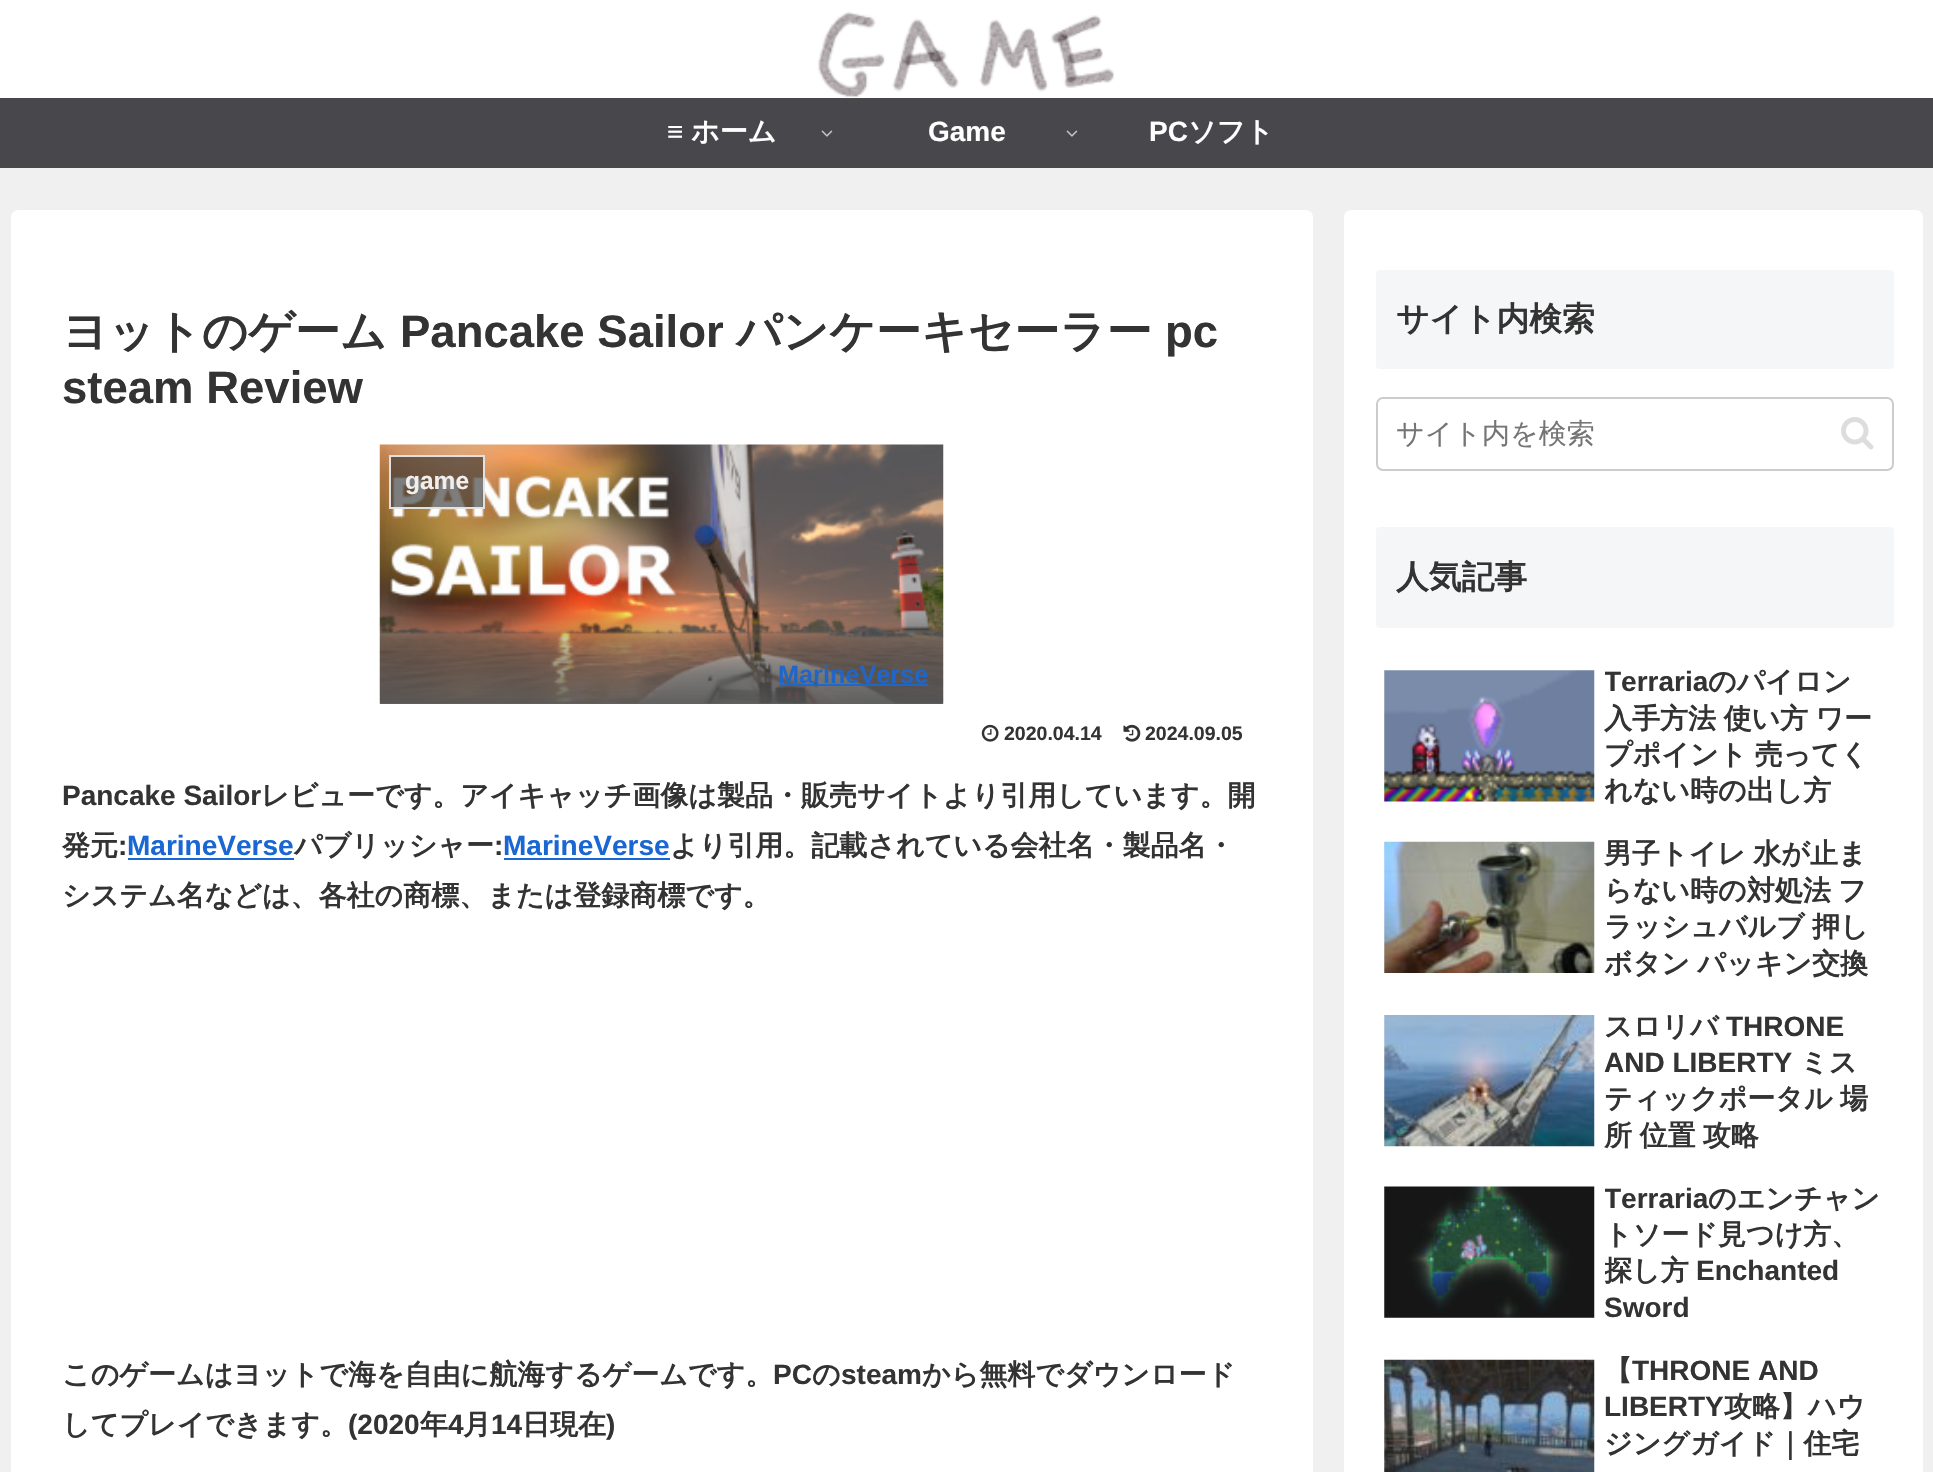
void draw(SkCanvas* canvas) {
    SkPaint paint;
    paint.setAntiAlias(true);
    auto spacedText = [&](const char* s, float x, float y, const SkFont& font, const SkPaint& ink, float letter, float word) {
        std::vector<SkGlyphID> glyphs(font.countText(s, strlen(s), SkTextEncoding::kUTF8));
        std::vector<float> xs(glyphs.size());
        font.textToGlyphs(s, strlen(s), SkTextEncoding::kUTF8, glyphs);
        font.getXPos(glyphs, xs, x);
        float extra = 0;
        for (size_t i = 0; i < glyphs.size(); i++) {
            xs[i] += extra;
            extra += letter + word * (glyphs[i] == font.unicharToGlyph(' '));
        }
        canvas->drawTextBlob(SkTextBlob::MakeFromPosHGlyphs(glyphs, xs, y, font), 0, 0, ink);
    };
    canvas->clear(0xFFF0F0F0);
    paint.setColor(0xFFFFFFFF);
    canvas->drawRect(SkRect::MakeXYWH(0, 0, 1933, 98), paint);
    canvas->drawImageRect(SkImages::DeferredFromEncodedData(SkData::MakeFromFileName("img1.png")), SkRect::MakeXYWH(817, 12, 298, 86), SkSamplingOptions());
    paint.setColor(0xFF47474C);
    canvas->drawRect(SkRect::MakeXYWH(0, 98, 1933, 70), paint);
    SkFont font1(fontMgr->matchFamilyStyle("Liberation Sans", SkFontStyle::Bold()), 28);
    font1.setSubpixel(true);
    paint.setColor(0xFFFFFFFF);
    canvas->drawString("≡", 667, 141, font1, paint);
    SkFont font2(fontMgr->matchFamilyStyle("WenQuanYi Zen Hei", SkFontStyle::Bold()), 28);
    font2.setSubpixel(true);
    canvas->drawString("ホーム", 691, 141, font2, paint);
    canvas->drawImageRect(SkImages::DeferredFromEncodedData(SkData::MakeFromFileName("img2.png")), SkRect::MakeXYWH(821, 130, 12, 7), SkSamplingOptions());
    canvas->drawString("Game", 928, 141, font1, paint);
    canvas->drawImageRect(SkImages::DeferredFromEncodedData(SkData::MakeFromFileName("img2.png")), SkRect::MakeXYWH(1066, 130, 12, 7), SkSamplingOptions());
    canvas->drawString("PC", 1149, 141, font1, paint);
    canvas->drawString("ソフト", 1188, 141, font2, paint);
    canvas->drawRoundRect(SkRect::MakeXYWH(11, 210, 1302, 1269), 7, 7, paint);
    SkFont font3(fontMgr->matchFamilyStyle("WenQuanYi Zen Hei", SkFontStyle::Bold()), 45.5f);
    font3.setSubpixel(true);
    paint.setColor(0xFF333333);
    canvas->drawString("ヨットのゲーム", 62, 347, font3, paint);
    SkFont font4(fontMgr->matchFamilyStyle("Liberation Sans", SkFontStyle::Bold()), 45.5f);
    font4.setSubpixel(true);
    canvas->drawString("Pancake Sailor", 400, 347, font4, paint);
    canvas->drawString("パンケーキセーラー", 736, 347, font3, paint);
    canvas->drawString("pc", 1165, 347, font4, paint);
    canvas->drawString("steam Review", 62, 403, font4, paint);
    canvas->drawImageRect(SkImages::DeferredFromEncodedData(SkData::MakeFromFileName("img3.png")), SkRect::MakeXYWH(379, 444, 565, 260), SkSamplingOptions());
    paint.setColor(0xA1333333);
    canvas->drawRect(SkRect::MakeXYWH(389, 455, 96, 54), paint);
    paint.setStyle(SkPaint::kStroke_Style);
    paint.setStrokeWidth(2);
    paint.setColor(0xE6EEEEEE);
    canvas->drawRect(SkRect::MakeXYWH(390, 456, 94, 52), paint);
    SkFont font5(fontMgr->matchFamilyStyle("Liberation Sans", SkFontStyle::Bold()), 24.5f);
    font5.setSubpixel(true);
    paint.setStyle(SkPaint::kFill_Style);
    paint.setColor(0xFFF1EFEE);
    canvas->drawString("game", 405, 489, font5, paint);
    {
        const SkColor colors[] = {0x00555555, 0xE6555555};
        const float stops[] = {0, 1};
        const SkPoint ends[] = {{662, 602}, {662, 704}};
        paint.setShader(SkGradientShader::MakeLinear(ends, colors, stops, 2, SkTileMode::kClamp));
        paint.setAlpha(255);
    }
    canvas->drawRect(SkRect::MakeXYWH(380, 604, 563, 100), paint);
    SkFont font6(fontMgr->matchFamilyStyle("Liberation Sans", SkFontStyle::Bold()), 25.25f);
    font6.setSubpixel(true);
    paint.setShader(nullptr);
    paint.setColor(0xFF2166C7);
    canvas->drawString("MarineVerse", 778, 683, font6, paint);
    paint.setColor(0xE61967D2);
    canvas->drawRect(SkRect::MakeXYWH(779, 684, 149, 2), paint);
    canvas->drawImageRect(SkImages::DeferredFromEncodedData(SkData::MakeFromFileName("img4.png")), SkRect::MakeXYWH(981, 724, 18, 18), SkSamplingOptions());
    SkFont font7(fontMgr->matchFamilyStyle("Liberation Sans", SkFontStyle::Bold()), 19.5f);
    font7.setSubpixel(true);
    paint.setColor(0xFF333333);
    canvas->drawString("2020.04.14", 1004, 740, font7, paint);
    canvas->drawImageRect(SkImages::DeferredFromEncodedData(SkData::MakeFromFileName("img5.png")), SkRect::MakeXYWH(1123, 724, 18, 18), SkSamplingOptions());
    canvas->drawString("2024.09.05", 1145, 740, font7, paint);
    canvas->drawString("Pancake Sailor", 62, 805, font1, paint);
    canvas->drawString("レビューです。アイキャッチ画像は製品・販売サイトより引用しています。開", 261, 805, font2, paint);
    canvas->drawString("発元", 62, 855, font2, paint);
    canvas->drawString(":", 118, 855, font1, paint);
    paint.setColor(0xFF1967D2);
    canvas->drawString("MarineVerse", 127, 855, font1, paint);
    canvas->drawRect(SkRect::MakeXYWH(128, 858, 166, 2), paint);
    paint.setColor(0xFF333333);
    canvas->drawString("パブリッシャー", 294, 855, font2, paint);
    canvas->drawString(":", 494, 855, font1, paint);
    paint.setColor(0xFF1967D2);
    canvas->drawString("MarineVerse", 503, 855, font1, paint);
    canvas->drawRect(SkRect::MakeXYWH(504, 858, 166, 2), paint);
    paint.setColor(0xFF333333);
    canvas->drawString("より引用。記載されている会社名・製品名・", 670, 855, font2, paint);
    canvas->drawString("システム名などは、各社の商標、または登録商標です。", 62, 905, font2, paint);
    canvas->drawString("このゲームはヨットで海を自由に航海するゲームです。", 62, 1384, font2, paint);
    canvas->drawString("PC", 773, 1384, font1, paint);
    canvas->drawString("の", 812, 1384, font2, paint);
    canvas->drawString("steam", 841, 1384, font1, paint);
    canvas->drawString("から無料でダウンロード", 922, 1384, font2, paint);
    canvas->drawString("してプレイできます。", 62, 1434, font2, paint);
    canvas->drawString("(2020", 348, 1434, font1, paint);
    canvas->drawString("年", 420, 1434, font2, paint);
    canvas->drawString("4", 448, 1434, font1, paint);
    canvas->drawString("月", 463, 1434, font2, paint);
    canvas->drawString("14", 491, 1434, font1, paint);
    canvas->drawString("日現在", 522, 1434, font2, paint);
    canvas->drawString(")", 606, 1434, font1, paint);
    paint.setColor(0xFFFFFFFF);
    canvas->drawRoundRect(SkRect::MakeXYWH(1344, 210, 579, 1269), 7, 7, paint);
    paint.setColor(0xFFF5F6F7);
    canvas->drawRoundRect(SkRect::MakeXYWH(1376, 270, 518, 99), 4, 4, paint);
    SkFont font8(fontMgr->matchFamilyStyle("WenQuanYi Zen Hei", SkFontStyle::Bold()), 32.75f);
    font8.setSubpixel(true);
    paint.setColor(0xFF333333);
    canvas->drawString("サイト内検索", 1396, 330, font8, paint);
    paint.setStyle(SkPaint::kStroke_Style);
    paint.setColor(0xFFCCCCCC);
    canvas->drawRoundRect(SkRect::MakeXYWH(1377, 398, 516, 72), 6, 6, paint);
    SkFont font9(fontMgr->matchFamilyStyle("WenQuanYi Zen Hei", SkFontStyle(500, SkFontStyle::kNormal_Width, SkFontStyle::kUpright_Slant)), 28);
    font9.setSubpixel(true);
    paint.setStyle(SkPaint::kFill_Style);
    paint.setColor(0xFF757575);
    canvas->drawString("サイト内を検索", 1396, 443, font9, paint);
    canvas->drawImageRect(SkImages::DeferredFromEncodedData(SkData::MakeFromFileName("img6.png")), SkRect::MakeXYWH(1841, 417, 33, 33), SkSamplingOptions());
    paint.setColor(0xFFF5F6F7);
    canvas->drawRoundRect(SkRect::MakeXYWH(1376, 527, 518, 101), 4, 4, paint);
    paint.setColor(0xFF333333);
    canvas->drawString("人気記事", 1396, 588, font8, paint);
    canvas->drawImageRect(SkImages::DeferredFromEncodedData(SkData::MakeFromFileName("img7.png")), SkRect::MakeXYWH(1384, 670, 211, 132), SkSamplingOptions());
    canvas->save();
    canvas->clipRect(SkRect::MakeXYWH(1605, 665, 280, 145));
    canvas->drawString("Terraria", 1604, 691, font1, paint);
    canvas->restore();
    canvas->drawString("のパイロン", 1708, 691, font2, paint);
    spacedText("入手方法 使い方 ワー", 1604, 728, font2, paint, 0, -1);
    spacedText("プポイント 売ってく", 1604, 764, font2, paint, 0, -1);
    canvas->drawString("れない時の出し方", 1604, 800, font2, paint);
    canvas->drawImageRect(SkImages::DeferredFromEncodedData(SkData::MakeFromFileName("img8.png")), SkRect::MakeXYWH(1384, 841, 211, 132), SkSamplingOptions());
    spacedText("男子トイレ 水が止ま", 1604, 863, font2, paint, 0, -1);
    spacedText("らない時の対処法 フ", 1604, 900, font2, paint, 0, -1);
    spacedText("ラッシュバルブ 押し", 1604, 936, font2, paint, 0, -1);
    spacedText("ボタン パッキン交換", 1604, 973, font2, paint, 0, -1);
    canvas->drawImageRect(SkImages::DeferredFromEncodedData(SkData::MakeFromFileName("img9.png")), SkRect::MakeXYWH(1384, 1015, 211, 132), SkSamplingOptions());
    canvas->drawString("スロリバ", 1604, 1036, font2, paint);
    canvas->drawString("THRONE", 1726, 1036, font1, paint);
    canvas->drawString("AND LIBERTY", 1604, 1072, font1, paint);
    canvas->drawString("ミス", 1800, 1072, font2, paint);
    spacedText("ティックポータル 場", 1604, 1108, font2, paint, 0, -1);
    spacedText("所 位置 攻略", 1604, 1145, font2, paint, 0, -1);
    canvas->drawImageRect(SkImages::DeferredFromEncodedData(SkData::MakeFromFileName("img10.png")), SkRect::MakeXYWH(1384, 1186, 211, 132), SkSamplingOptions());
    canvas->save();
    canvas->clipRect(SkRect::MakeXYWH(1605, 1181, 280, 146));
    canvas->drawString("Terraria", 1604, 1208, font1, paint);
    canvas->restore();
    canvas->drawString("のエンチャン", 1708, 1208, font2, paint);
    canvas->drawString("トソード見つけ方、", 1604, 1244, font2, paint);
    canvas->save();
    canvas->clipRect(SkRect::MakeXYWH(1605, 1181, 280, 146));
    canvas->drawString("探し方", 1604, 1280, font2, paint);
    canvas->restore();
    canvas->drawString("Enchanted", 1696, 1280, font1, paint);
    canvas->drawString("Sword", 1604, 1317, font1, paint);
    canvas->drawImageRect(SkImages::DeferredFromEncodedData(SkData::MakeFromFileName("img11.png")), SkRect::MakeXYWH(1384, 1359, 211, 113), SkSamplingOptions());
    canvas->drawString("【", 1604, 1380, font2, paint);
    canvas->drawString("THRONE AND", 1632, 1380, font1, paint);
    canvas->drawString("LIBERTY", 1604, 1416, font1, paint);
    canvas->drawString("攻略】ハウ", 1724, 1416, font2, paint);
    canvas->drawString("ジングガイド｜住宅", 1604, 1453, font2, paint);
}
